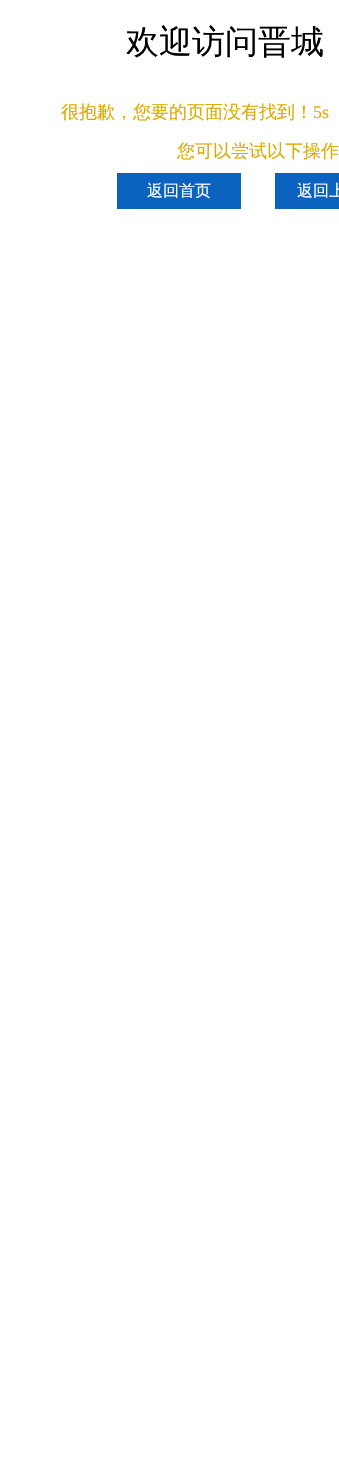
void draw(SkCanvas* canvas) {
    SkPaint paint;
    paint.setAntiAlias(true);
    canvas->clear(0xFFFFFFFF);
    SkFont font1(fontMgr->matchFamilyStyle("WenQuanYi Zen Hei", SkFontStyle(500, SkFontStyle::kNormal_Width, SkFontStyle::kUpright_Slant)), 33);
    font1.setSubpixel(true);
    paint.setColor(0xFF000000);
    canvas->drawString("欢迎访问晋城", 126, 53, font1, paint);
    SkFont font2(fontMgr->matchFamilyStyle("WenQuanYi Zen Hei", SkFontStyle(500, SkFontStyle::kNormal_Width, SkFontStyle::kUpright_Slant)), 18);
    font2.setSubpixel(true);
    paint.setColor(0xFFDDAA00);
    canvas->drawString("很抱歉，您要的页面没有找到！", 61, 118, font2, paint);
    SkFont font3(fontMgr->matchFamilyStyle("Liberation Serif", SkFontStyle::Normal()), 18);
    font3.setSubpixel(true);
    canvas->drawString("5s", 313, 118, font3, paint);
    canvas->drawString("您可以尝试以下操作", 177, 157, font2, paint);
    paint.setColor(0xFF0C62BF);
    canvas->drawRect(SkRect::MakeXYWH(117, 173, 124, 36), paint);
    SkFont font4(fontMgr->matchFamilyStyle("WenQuanYi Zen Hei", SkFontStyle(500, SkFontStyle::kNormal_Width, SkFontStyle::kUpright_Slant)), 16);
    font4.setSubpixel(true);
    paint.setColor(0xFFFFFFFF);
    canvas->drawString("返回首页", 147, 196, font4, paint);
    paint.setColor(0xFF0C62BF);
    canvas->drawRect(SkRect::MakeXYWH(275, 173, 64, 36), paint);
    paint.setColor(0xFFFFFFFF);
    canvas->drawString("返回上", 297, 196, font4, paint);
}
